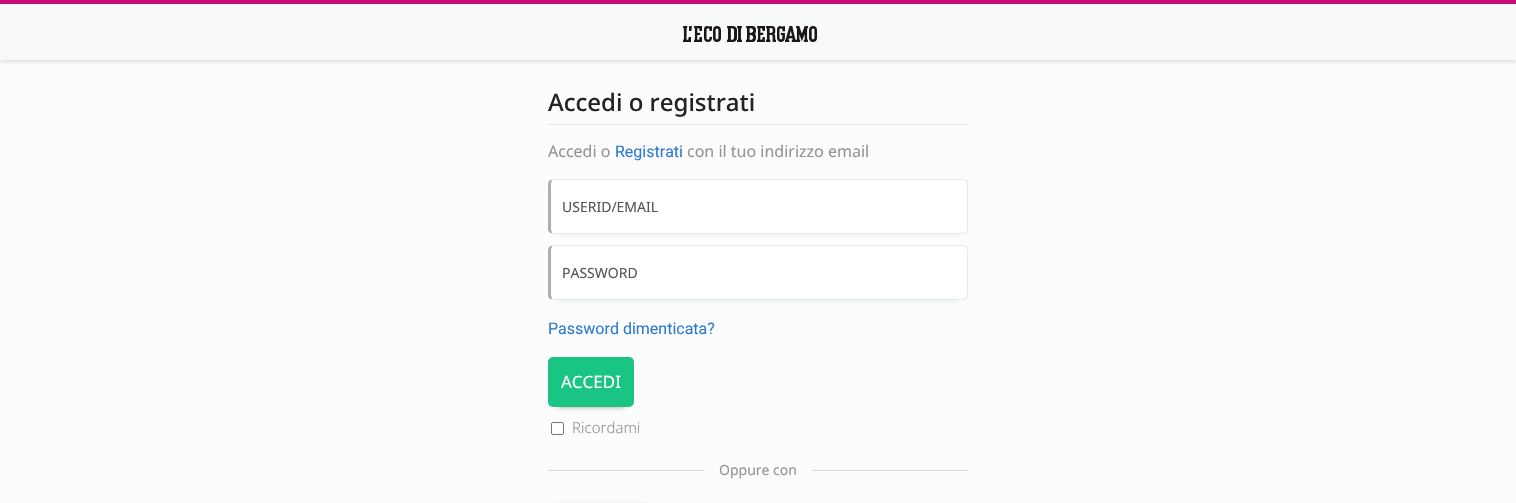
void draw(SkCanvas* canvas) {
    SkPaint paint;
    paint.setAntiAlias(true);
    canvas->clear(0xFFFCFCFC);
    paint.setColor(0x80C0C0C0);
    paint.setMaskFilter(SkMaskFilter::MakeBlur(kNormal_SkBlurStyle, 2));
    canvas->drawRect(SkRect::MakeXYWH(0, 2, 1516, 60), paint);
    paint.setMaskFilter(nullptr);
    paint.setColor(0xFFF8F9FA);
    canvas->drawRect(SkRect::MakeXYWH(0, 4, 1516, 56), paint);
    paint.setColor(0xFFC60E7B);
    canvas->drawRect(SkRect::MakeXYWH(0, 0, 1516, 4), paint);
    canvas->drawImageRect(SkImages::DeferredFromEncodedData(SkData::MakeFromFileName("img1.png")), SkRect::MakeXYWH(683, 26, 134, 16), SkSamplingOptions());
    paint.setColor(0xFFE3E3E3);
    canvas->drawRect(SkRect::MakeXYWH(548, 124, 420, 1), paint);
    SkFont font1(fontMgr->matchFamilyStyle("Noto Sans", SkFontStyle(500, SkFontStyle::kNormal_Width, SkFontStyle::kUpright_Slant)), 24);
    font1.setSubpixel(true);
    paint.setColor(0xFF212529);
    canvas->drawString("Accedi o registrati", 548, 111, font1, paint);
    SkFont font2(fontMgr->matchFamilyStyle("Noto Sans", SkFontStyle::Normal()), 16);
    font2.setSubpixel(true);
    paint.setColor(0xFF939393);
    canvas->drawString("Accedi o", 548, 157, font2, paint);
    SkFont font3(fontMgr->matchFamilyStyle("Roboto", SkFontStyle::Normal()), 16);
    font3.setSubpixel(true);
    paint.setColor(0xFF2A79D5);
    canvas->drawString("Registrati", 615, 157, font3, paint);
    paint.setColor(0xFF939393);
    canvas->drawString("con il tuo indirizzo email", 687, 157, font2, paint);
    paint.setColor(0xFFE5ECED);
    paint.setMaskFilter(SkMaskFilter::MakeBlur(kNormal_SkBlurStyle, 2));
    canvas->drawRect(SkRect::MakeXYWH(558, 200, 400, 35), paint);
    paint.setMaskFilter(nullptr);
    paint.setColor(0xFFFFFFFF);
    canvas->drawPath(SkPathBuilder().moveTo(553, 180).lineTo(963, 180).cubicTo(965, 180, 967, 182, 967, 184).lineTo(967, 229).cubicTo(967, 231, 965, 233, 963, 233).lineTo(553, 233).cubicTo(552, 233, 551, 231, 551, 229).lineTo(551, 184).cubicTo(551, 182, 552, 180, 553, 180).close().detach(), paint);
    paint.setColor(0xFFE5ECED);
    canvas->drawPath(SkPathBuilder().moveTo(553, 179).lineTo(550, 180).lineTo(552, 180).lineTo(553, 180).lineTo(963, 180).lineTo(966, 181).lineTo(967, 180).cubicTo(966, 180, 964, 179, 963, 179).close().detach(), paint);
    canvas->drawPath(SkPathBuilder().moveTo(968, 229).lineTo(968, 184).cubicTo(968, 182, 968, 181, 967, 180).lineTo(966, 181).cubicTo(966, 182, 967, 183, 967, 184).lineTo(967, 229).cubicTo(967, 230, 966, 231, 966, 232).lineTo(967, 233).cubicTo(968, 232, 968, 230, 968, 229).close().detach(), paint);
    canvas->drawPath(SkPathBuilder().moveTo(553, 234).lineTo(963, 234).cubicTo(964, 234, 966, 234, 967, 233).lineTo(966, 232).lineTo(963, 233).lineTo(553, 233).lineTo(552, 233).lineTo(550, 233).close().detach(), paint);
    paint.setColor(0xFFA6AFBA);
    canvas->drawPath(SkPathBuilder().moveTo(548, 184).lineTo(548, 229).cubicTo(548, 231, 549, 232, 550, 233).lineTo(552, 233).cubicTo(552, 232, 551, 230, 551, 229).lineTo(551, 184).cubicTo(551, 183, 552, 181, 552, 180).lineTo(550, 180).cubicTo(549, 181, 548, 182, 548, 184).close().detach(), paint);
    SkFont font4(fontMgr->matchFamilyStyle("Noto Sans", SkFontStyle::Normal()), 14);
    font4.setSubpixel(true);
    paint.setColor(0xFF555555);
    canvas->drawString("USERID/EMAIL", 562, 212, font4, paint);
    paint.setColor(0xFFE5ECED);
    paint.setMaskFilter(SkMaskFilter::MakeBlur(kNormal_SkBlurStyle, 2));
    canvas->drawRect(SkRect::MakeXYWH(558, 266, 400, 35), paint);
    paint.setMaskFilter(nullptr);
    paint.setColor(0xFFFFFFFF);
    canvas->drawPath(SkPathBuilder().moveTo(553, 246).lineTo(963, 246).cubicTo(965, 246, 967, 248, 967, 250).lineTo(967, 295).cubicTo(967, 297, 965, 299, 963, 299).lineTo(553, 299).cubicTo(552, 299, 551, 297, 551, 295).lineTo(551, 250).cubicTo(551, 248, 552, 246, 553, 246).close().detach(), paint);
    paint.setColor(0xFFE5ECED);
    canvas->drawPath(SkPathBuilder().moveTo(553, 245).lineTo(550, 246).lineTo(552, 246).lineTo(553, 246).lineTo(963, 246).lineTo(966, 247).lineTo(967, 246).cubicTo(966, 246, 964, 245, 963, 245).close().detach(), paint);
    canvas->drawPath(SkPathBuilder().moveTo(968, 295).lineTo(968, 250).cubicTo(968, 248, 968, 247, 967, 246).lineTo(966, 247).cubicTo(966, 248, 967, 249, 967, 250).lineTo(967, 295).cubicTo(967, 296, 966, 297, 966, 298).lineTo(967, 299).cubicTo(968, 298, 968, 296, 968, 295).close().detach(), paint);
    canvas->drawPath(SkPathBuilder().moveTo(553, 300).lineTo(963, 300).cubicTo(964, 300, 966, 300, 967, 299).lineTo(966, 298).lineTo(963, 299).lineTo(553, 299).lineTo(552, 299).lineTo(550, 299).close().detach(), paint);
    paint.setColor(0xFFA6AFBA);
    canvas->drawPath(SkPathBuilder().moveTo(548, 250).lineTo(548, 295).cubicTo(548, 297, 549, 298, 550, 299).lineTo(552, 299).cubicTo(552, 298, 551, 296, 551, 295).lineTo(551, 250).cubicTo(551, 249, 552, 247, 552, 246).lineTo(550, 246).cubicTo(549, 247, 548, 248, 548, 250).close().detach(), paint);
    paint.setColor(0xFF555555);
    canvas->drawString("PASSWORD", 562, 278, font4, paint);
    paint.setColor(0xFF2A79D5);
    canvas->drawString("Password dimenticata?", 548, 334, font3, paint);
    paint.setColor(0xFFB7B7B7);
    paint.setMaskFilter(SkMaskFilter::MakeBlur(kNormal_SkBlurStyle, 2));
    canvas->drawRect(SkRect::MakeXYWH(558, 378, 66, 30), paint);
    paint.setMaskFilter(nullptr);
    paint.setColor(0xFF1AC483);
    canvas->drawRoundRect(SkRect::MakeXYWH(548, 357, 86, 50), 5, 5, paint);
    SkFont font5(fontMgr->matchFamilyStyle("Noto Sans", SkFontStyle::Normal()), 17);
    font5.setSubpixel(true);
    paint.setColor(0xFFFFFFFF);
    canvas->drawString("ACCEDI", 561, 388, font5, paint);
    canvas->drawRoundRect(SkRect::MakeXYWH(551.5f, 422.5f, 12, 12), 1.5f, 1.5f, paint);
    paint.setStyle(SkPaint::kStroke_Style);
    paint.setStrokeWidth(1);
    paint.setColor(0xFF767676);
    canvas->drawRoundRect(SkRect::MakeXYWH(551.5f, 422.5f, 12, 12), 1.5f, 1.5f, paint);
    SkFont font6(fontMgr->matchFamilyStyle("Noto Sans", SkFontStyle(300, SkFontStyle::kNormal_Width, SkFontStyle::kUpright_Slant)), 15);
    font6.setSubpixel(true);
    paint.setStyle(SkPaint::kFill_Style);
    paint.setColor(0xFF939393);
    canvas->drawString("Ricordami", 572, 433, font6, paint);
    paint.setColor(0xFFDBDBDB);
    canvas->drawRect(SkRect::MakeXYWH(548, 470, 156, 1), paint);
    paint.setColor(0xFF939393);
    canvas->drawString("Oppure con", 719, 475, font4, paint);
    paint.setColor(0xFFDBDBDB);
    canvas->drawRect(SkRect::MakeXYWH(812, 470, 156, 1), paint);
    paint.setColor(0xFFF7F7F7);
    canvas->drawRoundRect(SkRect::MakeXYWH(552.5f, 500.5f, 96, 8), 4.5f, 4.5f, paint);
    paint.setStyle(SkPaint::kStroke_Style);
    paint.setColor(0xFFF8F9FA);
    canvas->drawRoundRect(SkRect::MakeXYWH(552.5f, 500.5f, 96, 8), 4.5f, 4.5f, paint);
}
